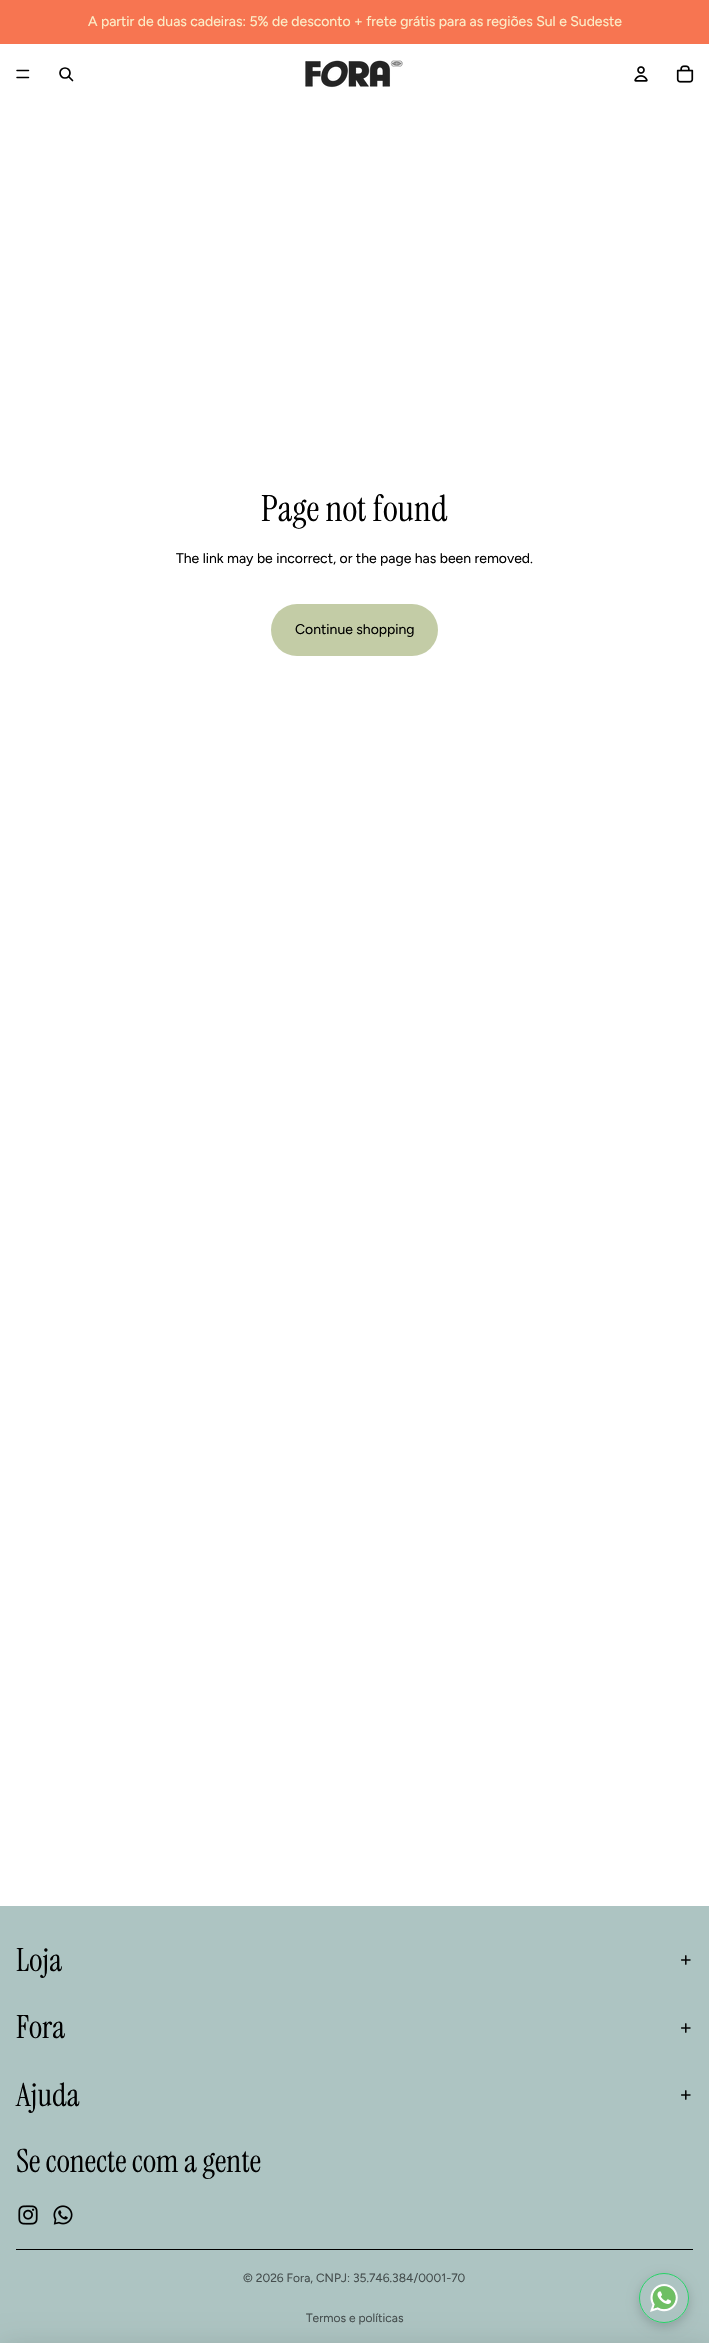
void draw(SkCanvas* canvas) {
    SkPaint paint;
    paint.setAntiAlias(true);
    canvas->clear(0xFFFFFFFF);
    paint.setColor(0xFFF77551);
    canvas->drawRect(SkRect::MakeXYWH(0, 0, 709, 44), paint);
    SkFont font1(fontMgr->matchFamilyStyle("Figtree", SkFontStyle::Normal()), 14);
    font1.setSubpixel(true);
    paint.setColor(0xFFFCEEC8);
    canvas->drawString("A partir de duas cadeiras: 5% de desconto + frete grátis para as regiões Sul e Sudeste", 88, 26, font1, paint);
    paint.setStyle(SkPaint::kStroke_Style);
    paint.setStrokeWidth(1.5f);
    paint.setStrokeCap(SkPaint::kRound_Cap);
    paint.setColor(0xFF000000);
    canvas->drawPath(SkPathBuilder().moveTo(17, 70.5f).lineTo(28.5f, 70.5f).moveTo(17, 77.5f).lineTo(28.5f, 77.5f).detach(), paint);
    paint.setStrokeWidth(1.7f);
    paint.setStrokeCap(SkPaint::kButt_Cap);
    canvas->drawCircle(65, 73, 5, paint);
    paint.setStrokeCap(SkPaint::kRound_Cap);
    paint.setStrokeJoin(SkPaint::kRound_Join);
    canvas->drawPath(SkPathBuilder().moveTo(69, 77).lineTo(72.5f, 80.5f).detach(), paint);
    canvas->drawImageRect(SkImages::DeferredFromEncodedData(SkData::MakeFromFileName("img1.png")), SkRect::MakeXYWH(305, 60, 98, 28), SkSamplingOptions());
    canvas->drawImageRect(SkImages::DeferredFromEncodedData(SkData::MakeFromFileName("img2.png")), SkRect::MakeXYWH(634, 66, 14, 16), SkSamplingOptions());
    canvas->drawImageRect(SkImages::DeferredFromEncodedData(SkData::MakeFromFileName("img3.png")), SkRect::MakeXYWH(676, 65, 18, 18), SkSamplingOptions());
    SkFont font2(fontMgr->matchFamilyStyle("Instrument Serif", SkFontStyle::Normal()), 36);
    font2.setSubpixel(true);
    paint.setStyle(SkPaint::kFill_Style);
    canvas->drawString("Page not found", 261, 521, font2, paint);
    canvas->drawString("The link may be incorrect, or the page has been removed.", 176, 563, font1, paint);
    paint.setColor(0xFFC3CCA6);
    canvas->drawRoundRect(SkRect::MakeXYWH(271, 604, 167, 52), 26, 26, paint);
    paint.setColor(0xFF000000);
    canvas->drawString("Continue shopping", 295, 634, font1, paint);
    paint.setColor(0xFFADC4C2);
    canvas->drawRect(SkRect::MakeXYWH(0, 1906, 709, 437), paint);
    SkFont font3(fontMgr->matchFamilyStyle("Instrument Serif", SkFontStyle::Normal()), 32);
    font3.setSubpixel(true);
    paint.setColor(0xFF000000);
    canvas->drawString("Loja", 16, 1971, font3, paint);
    canvas->drawImageRect(SkImages::DeferredFromEncodedData(SkData::MakeFromFileName("img4.png")), SkRect::MakeXYWH(681, 1955, 10, 10), SkSamplingOptions());
    canvas->drawString("Fora", 16, 2038, font3, paint);
    canvas->drawImageRect(SkImages::DeferredFromEncodedData(SkData::MakeFromFileName("img4.png")), SkRect::MakeXYWH(681, 2023, 10, 10), SkSamplingOptions());
    canvas->drawString("Ajuda", 16, 2106, font3, paint);
    canvas->drawImageRect(SkImages::DeferredFromEncodedData(SkData::MakeFromFileName("img4.png")), SkRect::MakeXYWH(681, 2090, 10, 10), SkSamplingOptions());
    canvas->drawString("Se conecte com a gente", 16, 2172, font3, paint);
    canvas->drawImageRect(SkImages::DeferredFromEncodedData(SkData::MakeFromFileName("img5.png")), SkRect::MakeXYWH(18, 2205, 20, 20), SkSamplingOptions());
    canvas->drawImageRect(SkImages::DeferredFromEncodedData(SkData::MakeFromFileName("img6.png")), SkRect::MakeXYWH(53, 2205, 20, 20), SkSamplingOptions());
    canvas->drawRect(SkRect::MakeXYWH(16, 2249, 677, 1), paint);
    SkFont font4(fontMgr->matchFamilyStyle("Figtree", SkFontStyle::Normal()), 12);
    font4.setSubpixel(true);
    paint.setColor(0xFF454E4E);
    canvas->drawString("© 2026 Fora, CNPJ: 35.746.384/0001-70", 243, 2282, font4, paint);
    canvas->drawString("Termos e políticas", 306, 2322, font4, paint);
    canvas->save();
    canvas->clipPath(SkPathBuilder(SkPathFillType::kEvenOdd).moveTo(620, 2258).lineTo(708, 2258).lineTo(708, 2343).lineTo(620, 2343).close().moveTo(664, 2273).cubicTo(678, 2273, 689, 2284, 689, 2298).cubicTo(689, 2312, 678, 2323, 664, 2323).cubicTo(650, 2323, 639, 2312, 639, 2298).cubicTo(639, 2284, 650, 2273, 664, 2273).close().detach(), true);
    paint.setColor(0x2E000000);
    paint.setMaskFilter(SkMaskFilter::MakeBlur(kNormal_SkBlurStyle, 6));
    canvas->drawRoundRect(SkRect::MakeXYWH(639, 2277, 50, 50), 25, 25, paint);
    paint.setMaskFilter(nullptr);
    canvas->restore();
    paint.setColor(0x26000000);
    paint.setMaskFilter(SkMaskFilter::MakeBlur(kNormal_SkBlurStyle, 15));
    canvas->drawRect(SkRect::MakeXYWH(0, 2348, 709, 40), paint);
    paint.setMaskFilter(nullptr);
    paint.setStyle(SkPaint::kStroke_Style);
    paint.setStrokeWidth(1);
    paint.setStrokeCap(SkPaint::kButt_Cap);
    paint.setStrokeJoin(SkPaint::kMiter_Join);
    paint.setColor(0xFF25D366);
    canvas->drawCircle(664, 2298, 24.5f, paint);
    canvas->drawImageRect(SkImages::DeferredFromEncodedData(SkData::MakeFromFileName("img7.png")), SkRect::MakeXYWH(650, 2284, 28, 28), SkSamplingOptions());
}
